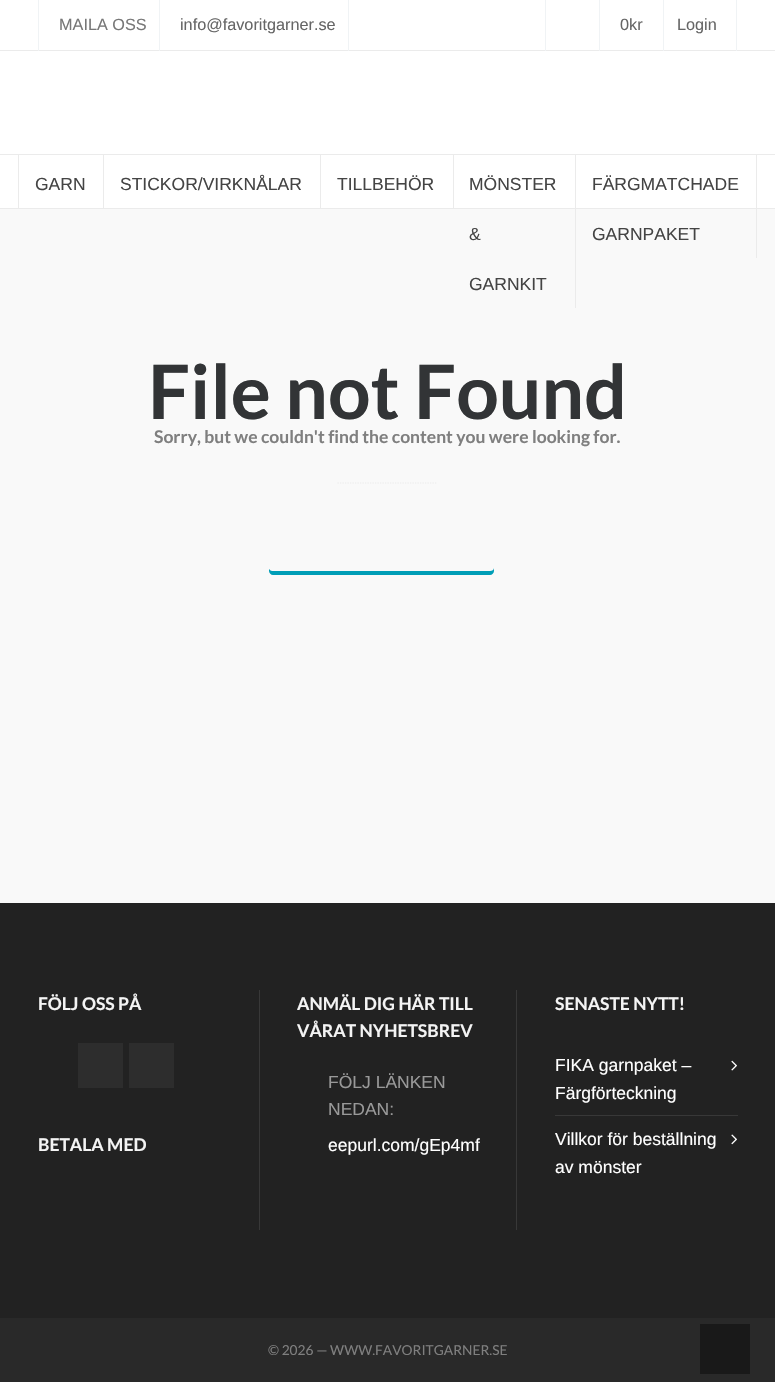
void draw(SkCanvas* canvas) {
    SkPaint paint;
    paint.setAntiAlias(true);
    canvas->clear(0xFFF9F9F9);
    paint.setColor(0xFFFFFFFF);
    canvas->drawRect(SkRect::MakeXYWH(0, 0, 775, 50), paint);
    paint.setColor(0xFFEBEBEB);
    canvas->drawRect(SkRect::MakeXYWH(0, 50, 775, 1), paint);
    paint.setColor(0xFFF0F3F5);
    canvas->drawRect(SkRect::MakeXYWH(159, 0, 1, 51), paint);
    canvas->drawRect(SkRect::MakeXYWH(38, 0, 1, 51), paint);
    SkFont font1(fontMgr->matchFamilyStyle("Liberation Sans", SkFontStyle::Normal()), 16.25f);
    font1.setSubpixel(true);
    paint.setColor(0xFF777777);
    canvas->drawString("MAILA OSS", 59, 30, font1, paint);
    paint.setColor(0xFFF0F3F5);
    canvas->drawRect(SkRect::MakeXYWH(348, 0, 1, 51), paint);
    paint.setColor(0xFF666666);
    canvas->drawString("info@favoritgarner.se", 180, 30, font1, paint);
    paint.setColor(0xFFF0F3F5);
    canvas->drawRect(SkRect::MakeXYWH(599, 0, 1, 51), paint);
    canvas->drawRect(SkRect::MakeXYWH(545, 0, 1, 51), paint);
    canvas->drawRect(SkRect::MakeXYWH(663, 0, 1, 51), paint);
    paint.setColor(0xFF666666);
    canvas->drawString("0kr", 620, 30, font1, paint);
    paint.setColor(0xFFF0F3F5);
    canvas->drawRect(SkRect::MakeXYWH(736, 0, 1, 51), paint);
    paint.setColor(0xFF666666);
    canvas->drawString("Login", 677, 30, font1, paint);
    paint.setColor(0xFFFFFFFF);
    canvas->drawRect(SkRect::MakeXYWH(0, 51, 775, 157), paint);
    paint.setColor(0xFFEBEBEB);
    canvas->drawRect(SkRect::MakeXYWH(0, 208, 775, 1), paint);
    canvas->drawRect(SkRect::MakeXYWH(0, 154, 775, 1), paint);
    canvas->drawRect(SkRect::MakeXYWH(18, 155, 1, 53), paint);
    canvas->drawRect(SkRect::MakeXYWH(103, 155, 1, 53), paint);
    SkFont font2(fontMgr->matchFamilyStyle("Liberation Sans", SkFontStyle::Normal()), 17.5f);
    font2.setSubpixel(true);
    paint.setColor(0xFF444444);
    canvas->drawString("GARN", 35, 190, font2, paint);
    paint.setColor(0xFFEBEBEB);
    canvas->drawRect(SkRect::MakeXYWH(320, 155, 1, 53), paint);
    paint.setColor(0xFF444444);
    canvas->drawString("STICKOR/VIRKNÅLAR", 120, 190, font2, paint);
    paint.setColor(0xFFEBEBEB);
    canvas->drawRect(SkRect::MakeXYWH(453, 155, 1, 53), paint);
    paint.setColor(0xFF444444);
    canvas->drawString("TILLBEHÖR", 337, 190, font2, paint);
    paint.setColor(0xFFEBEBEB);
    canvas->drawRect(SkRect::MakeXYWH(575, 155, 1, 153), paint);
    paint.setColor(0xFF444444);
    canvas->drawString("MÖNSTER", 469, 190, font2, paint);
    canvas->drawString("&", 469, 240, font2, paint);
    canvas->drawString("GARNKIT", 469, 290, font2, paint);
    paint.setColor(0xFFEBEBEB);
    canvas->drawRect(SkRect::MakeXYWH(756, 155, 1, 103), paint);
    paint.setColor(0xFF444444);
    canvas->drawString("FÄRGMATCHADE", 592, 190, font2, paint);
    canvas->drawString("GARNPAKET", 592, 240, font2, paint);
    SkFont font3(fontMgr->matchFamilyStyle("Lato", SkFontStyle::Bold()), 75);
    font3.setSubpixel(true);
    paint.setColor(0xFF323436);
    canvas->drawString("File not Found", 148, 419, font3, paint);
    SkFont font4(fontMgr->matchFamilyStyle("Lato", SkFontStyle::Bold()), 17.5f);
    font4.setSubpixel(true);
    paint.setColor(0xFF7F7F7F);
    canvas->drawString("Sorry, but we couldn't find the content you were looking for.", 154, 443, font4, paint);
    paint.setStyle(SkPaint::kStroke_Style);
    paint.setStrokeWidth(1.2f);
    paint.setColor(0xFFEBEBEB);
    paint.setPathEffect(SkDashPathEffect::Make({{1.25f, 1.25f}}, 0));
    canvas->drawPath(SkPathBuilder().moveTo(337.5f, 483).lineTo(437.5f, 483).detach(), paint);
    paint.setPathEffect(nullptr);
    paint.setStyle(SkPaint::kFill_Style);
    paint.setColor(0xFF009EB7);
    canvas->drawPath(SkPathBuilder().moveTo(269, 569).lineTo(269, 571).cubicTo(269, 573, 271, 575, 273, 575).lineTo(490, 575).cubicTo(492, 575, 494, 573, 494, 571).lineTo(494, 523).lineTo(494, 568).cubicTo(494, 570, 492, 571, 490, 571).lineTo(272, 571).cubicTo(271, 571, 270, 570, 269, 569).close().detach(), paint);
    paint.setColor(0xFF222222);
    canvas->drawRect(SkRect::MakeXYWH(0, 903, 775, 415), paint);
    paint.setColor(0xFFF4F4F4);
    canvas->drawString("FÖLJ OSS PÅ", 38, 1010, font4, paint);
    paint.setColor(0xFF2D2D2D);
    canvas->drawRect(SkRect::MakeXYWH(78, 1043, 45, 45), paint);
    canvas->drawRect(SkRect::MakeXYWH(129, 1043, 45, 45), paint);
    paint.setColor(0xFFF4F4F4);
    canvas->drawString("BETALA MED", 38, 1151, font4, paint);
    paint.setColor(0xFF383838);
    canvas->drawRect(SkRect::MakeXYWH(259, 990, 1, 240), paint);
    paint.setColor(0xFFF4F4F4);
    canvas->drawString("ANMÄL DIG HÄR TILL", 297, 1010, font4, paint);
    canvas->drawString("VÅRAT NYHETSBREV", 297, 1037, font4, paint);
    paint.setColor(0xFF999999);
    canvas->drawString("FÖLJ LÄNKEN", 328, 1088, font2, paint);
    canvas->drawString("NEDAN:", 328, 1115, font2, paint);
    paint.setColor(0xFFFFFFFF);
    canvas->drawString("eepurl.com/gEp4mf", 328, 1151, font2, paint);
    paint.setColor(0xFF383838);
    canvas->drawRect(SkRect::MakeXYWH(516, 990, 1, 240), paint);
    paint.setColor(0xFFF4F4F4);
    canvas->drawString("SENASTE NYTT!", 555, 1010, font4, paint);
    paint.setColor(0xFFFFFFFF);
    canvas->drawString("FIKA garnpaket –", 555, 1071, font2, paint);
    canvas->drawImageRect(SkImages::DeferredFromEncodedData(SkData::MakeFromFileName("img1.png")), SkRect::MakeXYWH(731, 1060, 6, 11), SkSamplingOptions());
    canvas->drawString("Färgförteckning", 555, 1099, font2, paint);
    paint.setColor(0xFF383838);
    canvas->drawRect(SkRect::MakeXYWH(555, 1115, 183, 1), paint);
    paint.setColor(0xFFFFFFFF);
    canvas->drawString("Villkor för beställning", 555, 1145, font2, paint);
    canvas->drawImageRect(SkImages::DeferredFromEncodedData(SkData::MakeFromFileName("img2.png")), SkRect::MakeXYWH(731, 1134, 6, 11), SkSamplingOptions());
    canvas->drawString("av mönster", 555, 1173, font2, paint);
    paint.setColor(0xFF292929);
    canvas->drawRect(SkRect::MakeXYWH(0, 1318, 775, 64), paint);
    SkFont font5(fontMgr->matchFamilyStyle("Lato", SkFontStyle::Normal()), 13.75f);
    font5.setSubpixel(true);
    paint.setColor(0xFF7F7F7F);
    canvas->drawString("© 2026 — WWW.FAVORITGARNER.SE", 268, 1355, font5, paint);
    paint.setColor(0xFF191919);
    canvas->drawRect(SkRect::MakeXYWH(700, 1324, 50, 50), paint);
}
